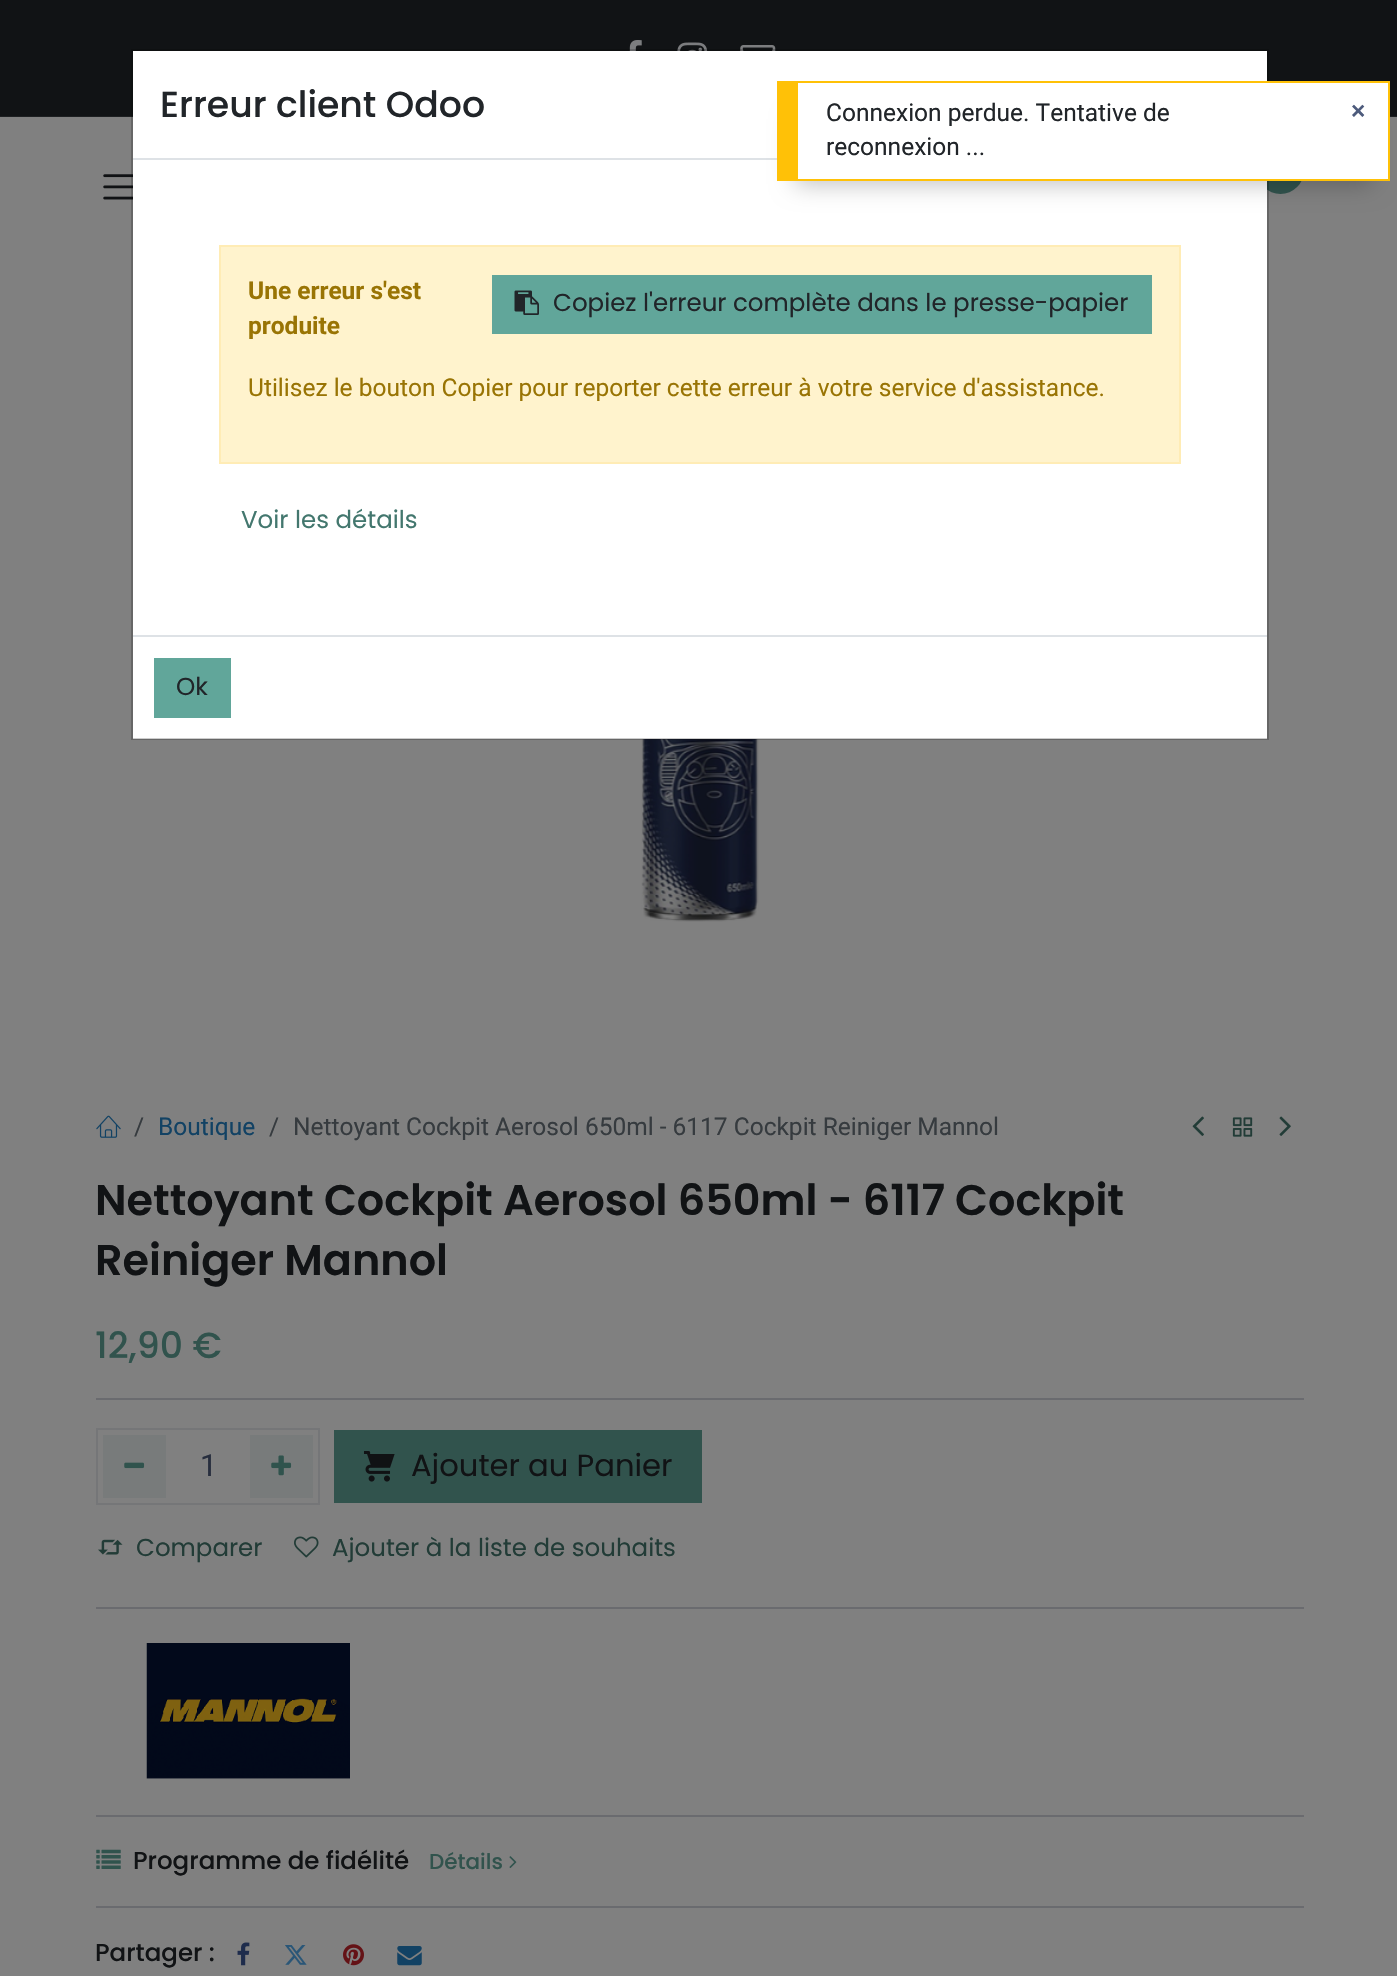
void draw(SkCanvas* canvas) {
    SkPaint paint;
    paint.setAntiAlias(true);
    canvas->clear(0xFF808080);
    paint.setColor(0xFF111315);
    canvas->drawRect(SkRect::MakeXYWH(0, 0, 1397, 116), paint);
    paint.setColor(0xFF1E2022);
    canvas->drawRect(SkRect::MakeXYWH(0, 116, 1397, 1), paint);
    paint.setColor(0xFF31534D);
    canvas->drawCircle(1280.5f, 170.5f, 23.5f, paint);
    paint.setColor(0xFFFFFFFF);
    canvas->drawRect(SkRect::MakeXYWH(133, 51, 1134, 688), paint);
    canvas->drawImageRect(SkImages::DeferredFromEncodedData(SkData::MakeFromFileName("img2.png")), SkRect::MakeXYWH(629, 40, 13, 11), SkSamplingOptions());
    canvas->drawImageRect(SkImages::DeferredFromEncodedData(SkData::MakeFromFileName("img3.png")), SkRect::MakeXYWH(677, 42, 31, 9), SkSamplingOptions());
    canvas->drawImageRect(SkImages::DeferredFromEncodedData(SkData::MakeFromFileName("img4.png")), SkRect::MakeXYWH(740, 45, 36, 6), SkSamplingOptions());
    canvas->drawImageRect(SkImages::DeferredFromEncodedData(SkData::MakeFromFileName("img5.png")), SkRect::MakeXYWH(103, 174, 30, 26), SkSamplingOptions());
    canvas->drawImageRect(SkImages::DeferredFromEncodedData(SkData::MakeFromFileName("img6.png")), SkRect::MakeXYWH(641, 739, 118, 183), SkSamplingOptions());
    paint.setStyle(SkPaint::kStroke_Style);
    paint.setStrokeWidth(2);
    paint.setColor(0x33000000);
    canvas->drawRect(SkRect::MakeXYWH(132, 50, 1136, 689), paint);
    paint.setStyle(SkPaint::kFill_Style);
    paint.setColor(0xFFDEE2E6);
    canvas->drawRect(SkRect::MakeXYWH(133, 158, 644, 2), paint);
    SkFont font1(fontMgr->matchFamilyStyle("Poppins", SkFontStyle(500, SkFontStyle::kNormal_Width, SkFontStyle::kUpright_Slant)), 36.25f);
    font1.setSubpixel(true);
    paint.setColor(0xFF212529);
    canvas->drawString("Erreur client Odoo", 160, 117, font1, paint);
    paint.setColor(0xFFFFF3CD);
    canvas->drawRect(SkRect::MakeXYWH(220, 246, 960, 217), paint);
    paint.setStyle(SkPaint::kStroke_Style);
    paint.setColor(0xFFFFECB5);
    canvas->drawRect(SkRect::MakeXYWH(220, 246, 960, 217), paint);
    SkFont font2(fontMgr->matchFamilyStyle("Roboto", SkFontStyle::Bold()), 24.5f);
    font2.setSubpixel(true);
    paint.setStyle(SkPaint::kFill_Style);
    paint.setColor(0xFF997404);
    canvas->drawString("Une erreur s'est", 248, 299, font2, paint);
    canvas->drawString("produite", 248, 334, font2, paint);
    paint.setColor(0xFF61A69A);
    canvas->drawRect(SkRect::MakeXYWH(492, 275, 660, 59), paint);
    canvas->drawImageRect(SkImages::DeferredFromEncodedData(SkData::MakeFromFileName("img1.png")), SkRect::MakeXYWH(514, 290, 25, 25), SkSamplingOptions());
    SkFont font3(fontMgr->matchFamilyStyle("Poppins", SkFontStyle::Normal()), 24.5f);
    font3.setSubpixel(true);
    paint.setColor(0xFF212529);
    canvas->drawString("Copiez l'erreur complète dans le presse-papier", 553, 311, font3, paint);
    SkFont font4(fontMgr->matchFamilyStyle("Roboto", SkFontStyle::Normal()), 24.5f);
    font4.setSubpixel(true);
    paint.setColor(0xFF997404);
    canvas->drawString("Utilisez le bouton Copier pour reporter cette erreur à votre service d'assistance.", 248, 396, font4, paint);
    paint.setColor(0xFF43776E);
    canvas->drawString("Voir les détails", 241, 528, font3, paint);
    paint.setColor(0xFFDEE2E6);
    canvas->drawRect(SkRect::MakeXYWH(133, 635, 1134, 2), paint);
    paint.setColor(0xFF61A69A);
    canvas->drawRect(SkRect::MakeXYWH(154, 658, 77, 60), paint);
    paint.setColor(0xFF212529);
    canvas->drawString("Ok", 176, 695, font3, paint);
    paint.setColor(0x40000000);
    paint.setMaskFilter(SkMaskFilter::MakeBlur(kNormal_SkBlurStyle, 12));
    canvas->drawRect(SkRect::MakeXYWH(795, 119, 577, 65), paint);
    paint.setMaskFilter(nullptr);
    paint.setColor(0xFFFFFFFF);
    canvas->drawRect(SkRect::MakeXYWH(798, 83, 590, 96), paint);
    paint.setColor(0xFFFFC107);
    canvas->drawRect(SkRect::MakeXYWH(798, 81, 592, 2), paint);
    canvas->drawRect(SkRect::MakeXYWH(1388, 81, 2, 99), paint);
    canvas->drawRect(SkRect::MakeXYWH(777, 179, 613, 2), paint);
    canvas->drawRect(SkRect::MakeXYWH(777, 81, 21, 98), paint);
    paint.setColor(0xFF212529);
    canvas->drawString("Connexion perdue. Tentative de", 826, 121, font4, paint);
    canvas->drawString("reconnexion ...", 826, 155, font4, paint);
    SkFont font5(fontMgr->matchFamilyStyle("Liberation Sans", SkFontStyle::Bold()), 24.5f);
    font5.setSubpixel(true);
    paint.setColor(0xFF4D5B7C);
    canvas->drawString("×", 1351, 119, font5, paint);
    canvas->drawImageRect(SkImages::DeferredFromEncodedData(SkData::MakeFromFileName("img7.png")), SkRect::MakeXYWH(96, 1115, 25, 23), SkSamplingOptions());
    paint.setColor(0xFF363B3F);
    canvas->drawString("/", 134, 1135, font4, paint);
    paint.setColor(0xFF124264);
    canvas->drawString("Boutique", 158, 1135, font4, paint);
    paint.setColor(0xFF363B3F);
    canvas->drawString("/", 269, 1135, font4, paint);
    canvas->drawString("Nettoyant Cockpit Aerosol 650ml - 6117 Cockpit Reiniger Mannol", 293, 1135, font4, paint);
    canvas->drawImageRect(SkImages::DeferredFromEncodedData(SkData::MakeFromFileName("img8.png")), SkRect::MakeXYWH(1192, 1116, 12, 20), SkSamplingOptions());
    canvas->drawImageRect(SkImages::DeferredFromEncodedData(SkData::MakeFromFileName("img9.png")), SkRect::MakeXYWH(1232, 1117, 21, 20), SkSamplingOptions());
    canvas->drawImageRect(SkImages::DeferredFromEncodedData(SkData::MakeFromFileName("img10.png")), SkRect::MakeXYWH(1279, 1116, 12, 20), SkSamplingOptions());
    SkFont font6(fontMgr->matchFamilyStyle("Poppins", SkFontStyle(600, SkFontStyle::kNormal_Width, SkFontStyle::kUpright_Slant)), 42.9f);
    font6.setSubpixel(true);
    paint.setColor(0xFF111315);
    canvas->drawString("Nettoyant Cockpit Aerosol 650ml - 6117 Cockpit", 95, 1215, font6, paint);
    canvas->drawString("Reiniger Mannol", 95, 1275, font6, paint);
    paint.setColor(0xFF31534D);
    canvas->drawString("12,90 €", 95, 1358, font1, paint);
    paint.setColor(0xFF6A6B6F);
    canvas->drawRect(SkRect::MakeXYWH(96, 1398, 1208, 2), paint);
    paint.setStyle(SkPaint::kStroke_Style);
    paint.setColor(0xFF757678);
    canvas->drawRect(SkRect::MakeXYWH(97, 1429, 222, 75), paint);
    paint.setStyle(SkPaint::kFill_Style);
    paint.setColor(0xFF787B7B);
    canvas->drawRect(SkRect::MakeXYWH(103, 1435, 63, 63), paint);
    canvas->drawImageRect(SkImages::DeferredFromEncodedData(SkData::MakeFromFileName("img11.png")), SkRect::MakeXYWH(124, 1462, 21, 7), SkSamplingOptions());
    SkFont font7(fontMgr->matchFamilyStyle("Roboto", SkFontStyle::Normal()), 30.6f);
    font7.setSubpixel(true);
    paint.setColor(0xFF272E3E);
    canvas->drawString("1", 200, 1476, font7, paint);
    paint.setColor(0xFF787B7B);
    canvas->drawRect(SkRect::MakeXYWH(250, 1435, 63, 63), paint);
    canvas->drawImageRect(SkImages::DeferredFromEncodedData(SkData::MakeFromFileName("img12.png")), SkRect::MakeXYWH(271, 1455, 21, 21), SkSamplingOptions());
    paint.setColor(0xFF31534D);
    canvas->drawRect(SkRect::MakeXYWH(334, 1430, 368, 73), paint);
    canvas->drawImageRect(SkImages::DeferredFromEncodedData(SkData::MakeFromFileName("img13.png")), SkRect::MakeXYWH(364, 1451, 31, 31), SkSamplingOptions());
    SkFont font8(fontMgr->matchFamilyStyle("Poppins", SkFontStyle::Normal()), 30.6f);
    font8.setSubpixel(true);
    paint.setColor(0xFF111315);
    canvas->drawString("Ajouter au Panier", 411, 1476, font8, paint);
    canvas->drawImageRect(SkImages::DeferredFromEncodedData(SkData::MakeFromFileName("img14.png")), SkRect::MakeXYWH(98, 1539, 25, 16), SkSamplingOptions());
    paint.setColor(0xFF223C37);
    canvas->drawString("Comparer", 136, 1556, font3, paint);
    canvas->drawImageRect(SkImages::DeferredFromEncodedData(SkData::MakeFromFileName("img15.png")), SkRect::MakeXYWH(294, 1536, 25, 22), SkSamplingOptions());
    canvas->drawString("Ajouter à la liste de souhaits", 332, 1556, font3, paint);
    paint.setColor(0xFF6A6B6F);
    canvas->drawRect(SkRect::MakeXYWH(96, 1607, 1208, 2), paint);
    canvas->drawImageRect(SkImages::DeferredFromEncodedData(SkData::MakeFromFileName("img16.png")), SkRect::MakeXYWH(146, 1643, 204, 136), SkSamplingOptions());
    canvas->drawRect(SkRect::MakeXYWH(96, 1815, 1208, 2), paint);
    canvas->drawImageRect(SkImages::DeferredFromEncodedData(SkData::MakeFromFileName("img17.png")), SkRect::MakeXYWH(96, 1849, 25, 20), SkSamplingOptions());
    SkFont font9(fontMgr->matchFamilyStyle("Poppins", SkFontStyle(500, SkFontStyle::kNormal_Width, SkFontStyle::kUpright_Slant)), 24.5f);
    font9.setSubpixel(true);
    paint.setColor(0xFF111315);
    canvas->drawString("Programme de fidélité", 133, 1869, font9, paint);
    SkFont font10(fontMgr->matchFamilyStyle("Poppins", SkFontStyle(500, SkFontStyle::kNormal_Width, SkFontStyle::kUpright_Slant)), 21.5f);
    font10.setSubpixel(true);
    paint.setColor(0xFF31534D);
    canvas->drawString("Détails", 429, 1869, font10, paint);
    canvas->drawImageRect(SkImages::DeferredFromEncodedData(SkData::MakeFromFileName("img18.png")), SkRect::MakeXYWH(509, 1856, 8, 12), SkSamplingOptions());
    paint.setColor(0xFF6A6B6F);
    canvas->drawRect(SkRect::MakeXYWH(96, 1906, 1208, 2), paint);
    paint.setColor(0xFF111315);
    canvas->drawString("Partager :", 95, 1961, font9, paint);
    canvas->drawImageRect(SkImages::DeferredFromEncodedData(SkData::MakeFromFileName("img19.png")), SkRect::MakeXYWH(237, 1942, 13, 24), SkSamplingOptions());
    canvas->drawImageRect(SkImages::DeferredFromEncodedData(SkData::MakeFromFileName("img20.png")), SkRect::MakeXYWH(285, 1945, 22, 20), SkSamplingOptions());
    canvas->drawImageRect(SkImages::DeferredFromEncodedData(SkData::MakeFromFileName("img21.png")), SkRect::MakeXYWH(343, 1944, 21, 22), SkSamplingOptions());
    canvas->drawImageRect(SkImages::DeferredFromEncodedData(SkData::MakeFromFileName("img22.png")), SkRect::MakeXYWH(397, 1946, 25, 20), SkSamplingOptions());
}
